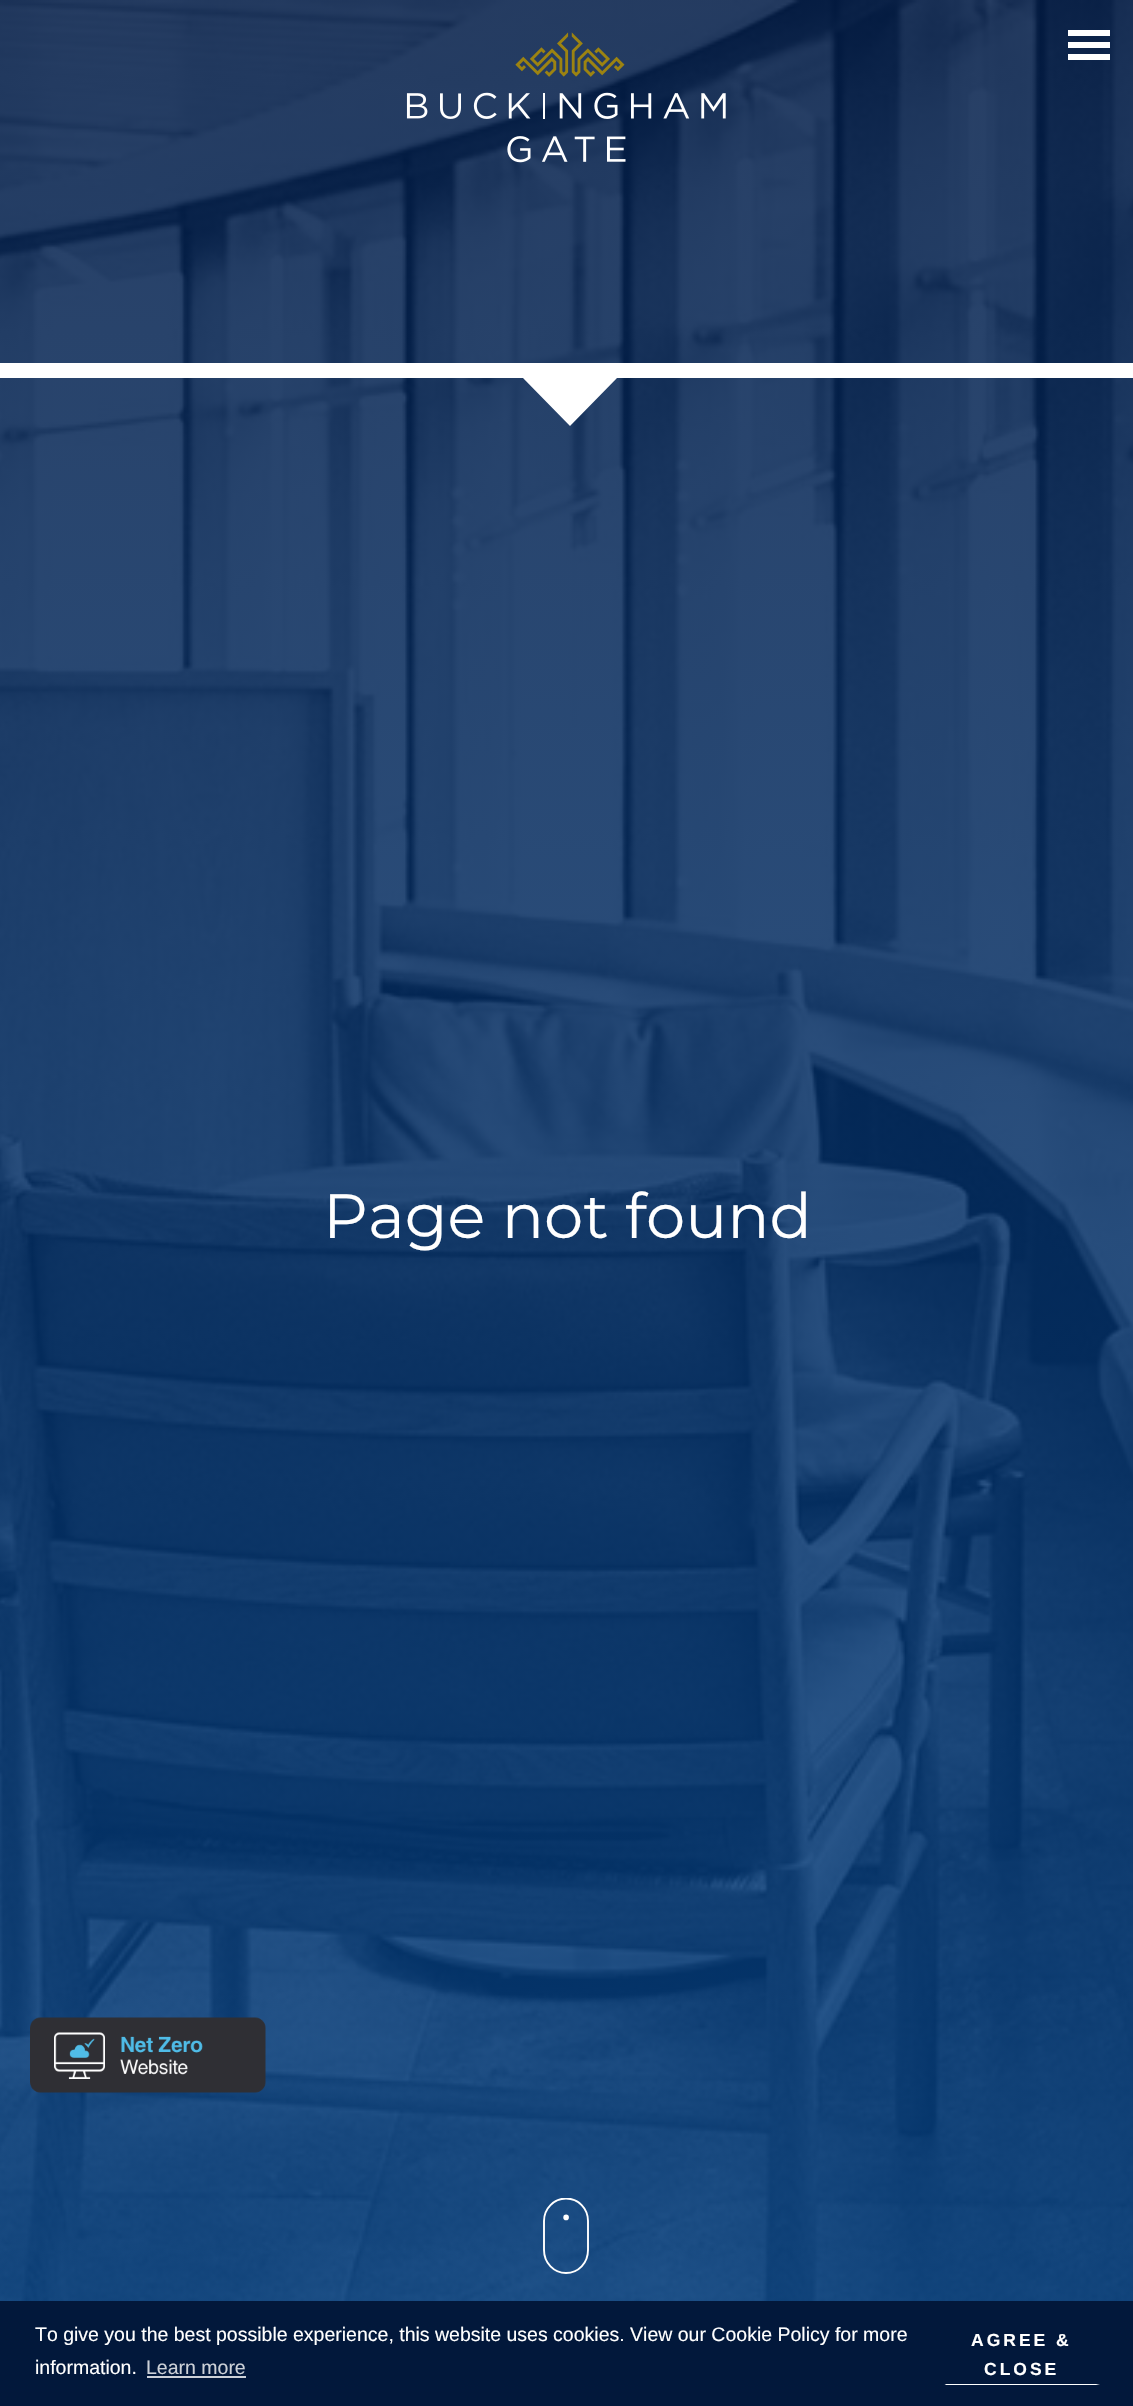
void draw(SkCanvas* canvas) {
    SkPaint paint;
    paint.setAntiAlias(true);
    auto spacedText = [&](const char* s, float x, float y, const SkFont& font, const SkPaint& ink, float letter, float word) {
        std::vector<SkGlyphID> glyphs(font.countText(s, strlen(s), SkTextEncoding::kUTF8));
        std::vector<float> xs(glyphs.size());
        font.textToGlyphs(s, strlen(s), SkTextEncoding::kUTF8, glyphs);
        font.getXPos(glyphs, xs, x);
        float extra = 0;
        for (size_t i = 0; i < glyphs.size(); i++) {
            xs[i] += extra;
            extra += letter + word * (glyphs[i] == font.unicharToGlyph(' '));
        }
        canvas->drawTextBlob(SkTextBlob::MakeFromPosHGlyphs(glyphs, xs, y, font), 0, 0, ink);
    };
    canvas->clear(0xFFFFFFFF);
    canvas->drawImageRect(SkImages::DeferredFromEncodedData(SkData::MakeFromFileName("img3.png")), SkRect::MakeXYWH(0, 0, 1133, 2301), SkSamplingOptions());
    canvas->drawImageRect(SkImages::DeferredFromEncodedData(SkData::MakeFromFileName("img1.png")), SkRect::MakeXYWH(406, 32, 320, 131), SkSamplingOptions());
    paint.setColor(0xFFFFFFFF);
    canvas->drawRect(SkRect::MakeXYWH(1068, 30, 42, 6), paint);
    canvas->drawRect(SkRect::MakeXYWH(1068, 42, 42, 6), paint);
    canvas->drawRect(SkRect::MakeXYWH(1068, 54, 42, 6), paint);
    canvas->save();
    canvas->clipRect(SkRect::MakeXYWH(0, 363, 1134, 180));
    canvas->drawPath(SkPathBuilder().moveTo(570, 426).lineTo(617, 378).lineTo(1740, 378).lineTo(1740, 309).lineTo(-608, 309).lineTo(-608, 378).lineTo(523, 378).close().detach(), paint);
    canvas->restore();
    canvas->drawImageRect(SkImages::DeferredFromEncodedData(SkData::MakeFromFileName("img2.png")), SkRect::MakeXYWH(30, 2017, 236, 76), SkSamplingOptions());
    SkFont font1(fontMgr->matchFamilyStyle("Montserrat", SkFontStyle::Normal()), 62.5f);
    font1.setSubpixel(true);
    canvas->drawString("Page not found", 323, 1238, font1, paint);
    canvas->save();
    canvas->clipRect(SkRect::MakeXYWH(543, 2198, 48, 82));
    paint.setStyle(SkPaint::kStroke_Style);
    paint.setStrokeWidth(1.9f);
    canvas->drawPath(SkPathBuilder().moveTo(566, 2198.5f).cubicTo(578.5f, 2198.5f, 588, 2208.5f, 588, 2221).lineTo(588, 2250).cubicTo(588, 2263, 578.5f, 2273, 566, 2273).cubicTo(554, 2273, 544, 2263, 544, 2250).lineTo(544, 2221).cubicTo(544, 2208.5f, 554, 2198.5f, 566, 2198.5f).close().detach(), paint);
    canvas->restore();
    paint.setStyle(SkPaint::kFill_Style);
    canvas->drawCircle(566.1f, 2217.4f, 2.8f, paint);
    paint.setColor(0xFF02183B);
    canvas->drawRect(SkRect::MakeXYWH(0, 2301, 1133, 105), paint);
    SkFont font2(fontMgr->matchFamilyStyle("Liberation Sans", SkFontStyle::Normal()), 19.5f);
    font2.setSubpixel(true);
    paint.setColor(0xFFFFFFFF);
    canvas->drawString("To give you the best possible experience, this website uses cookies. View our Cookie Policy for more", 35, 2341, font2, paint);
    canvas->drawString("information.", 35, 2374, font2, paint);
    paint.setColor(0xFFCCD1D8);
    canvas->drawString("Learn more", 146, 2374, font2, paint);
    canvas->drawRect(SkRect::MakeXYWH(147, 2376, 99, 2), paint);
    paint.setColor(0xFFFFFFFF);
    canvas->drawPath(SkPathBuilder().moveTo(1100, 2385).lineTo(944, 2385).lineTo(946, 2384).lineTo(1096, 2384).close().detach(), paint);
    paint.setColor(0xFF02183B);
    canvas->drawPath(SkPathBuilder().moveTo(944, 2385).lineTo(944, 2322).lineTo(946, 2325).lineTo(946, 2384).close().detach(), paint);
    SkFont font3(fontMgr->matchFamilyStyle("Liberation Sans", SkFontStyle::Bold()), 17.5f);
    font3.setSubpixel(true);
    paint.setColor(0xFFFFFFFF);
    spacedText("AGREE &", 971, 2346, font3, paint, 3, 0);
    spacedText("CLOSE", 984, 2375, font3, paint, 3, 0);
}
